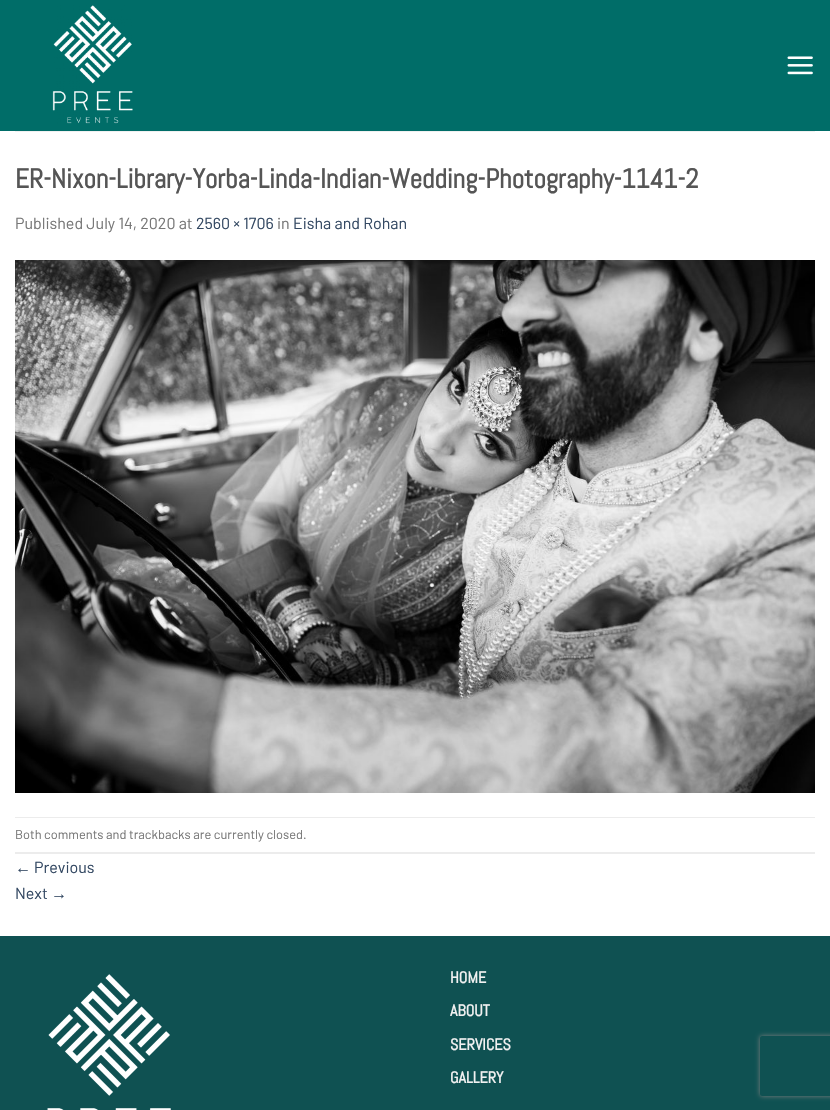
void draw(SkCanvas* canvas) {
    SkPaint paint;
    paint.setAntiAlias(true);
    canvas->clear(0xFFFFFFFF);
    paint.setColor(0xFF006D68);
    canvas->drawRect(SkRect::MakeXYWH(0, 0, 830, 131), paint);
    canvas->drawImageRect(SkImages::DeferredFromEncodedData(SkData::MakeFromFileName("img1.png")), SkRect::MakeXYWH(52, 5, 81, 119), SkSamplingOptions());
    canvas->drawImageRect(SkImages::DeferredFromEncodedData(SkData::MakeFromFileName("img2.png")), SkRect::MakeXYWH(787, 56, 26, 19), SkSamplingOptions());
    paint.setColor(0xFFF1F1F1);
    canvas->drawRect(SkRect::MakeXYWH(15, 131, 800, 1), paint);
    SkFont font1(fontMgr->matchFamilyStyle("Abel", SkFontStyle::Bold()), 27.2f);
    font1.setSubpixel(true);
    paint.setColor(0xFF555555);
    canvas->drawString("ER-Nixon-Library-Yorba-Linda-Indian-Wedding-Photography-1141-2", 15, 188, font1, paint);
    SkFont font2(fontMgr->matchFamilyStyle("Barlow", SkFontStyle::Normal()), 16);
    font2.setSubpixel(true);
    paint.setColor(0xFF777777);
    canvas->drawString("Published July 14, 2020 at", 15, 229, font2, paint);
    paint.setColor(0xFF334862);
    canvas->drawString("2560 × 1706", 196, 229, font2, paint);
    paint.setColor(0xFF777777);
    canvas->drawString("in", 277, 229, font2, paint);
    paint.setColor(0xFF334862);
    canvas->drawString("Eisha and Rohan", 293, 229, font2, paint);
    canvas->drawImageRect(SkImages::DeferredFromEncodedData(SkData::MakeFromFileName("img3.png")), SkRect::MakeXYWH(15, 260, 800, 533), SkSamplingOptions());
    paint.setColor(0xFFECECEC);
    canvas->drawRect(SkRect::MakeXYWH(15, 817, 800, 1), paint);
    canvas->drawRect(SkRect::MakeXYWH(15, 852, 800, 2), paint);
    SkFont font3(fontMgr->matchFamilyStyle("Barlow", SkFontStyle::Normal()), 12.8f);
    font3.setSubpixel(true);
    paint.setColor(0xFF777777);
    canvas->drawString("Both comments and trackbacks are currently closed.", 15, 839, font3, paint);
    SkFont font4(fontMgr->matchFamilyStyle("Liberation Sans", SkFontStyle::Normal()), 16);
    font4.setSubpixel(true);
    paint.setColor(0xFF334862);
    canvas->drawString("←", 15, 873, font4, paint);
    canvas->drawString("Previous", 34, 873, font2, paint);
    canvas->drawString("Next", 15, 899, font2, paint);
    canvas->drawString("→", 51, 899, font4, paint);
    paint.setColor(0xFF0F5152);
    canvas->drawRect(SkRect::MakeXYWH(0, 936, 830, 174), paint);
    canvas->drawImageRect(SkImages::DeferredFromEncodedData(SkData::MakeFromFileName("img4.png")), SkRect::MakeXYWH(47, 974, 124, 136), SkSamplingOptions());
    SkFont font5(fontMgr->matchFamilyStyle("Abel", SkFontStyle::Bold()), 16);
    font5.setSubpixel(true);
    paint.setColor(0xFFF1F1F1);
    canvas->drawString("HOME", 450, 983, font5, paint);
    canvas->drawString("ABOUT", 450, 1016, font5, paint);
    canvas->drawString("SERVICES", 450, 1050, font5, paint);
    canvas->drawString("GALLERY", 450, 1083, font5, paint);
    canvas->save();
    canvas->clipPath(SkPathBuilder(SkPathFillType::kEvenOdd).moveTo(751, 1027).lineTo(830, 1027).lineTo(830, 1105).lineTo(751, 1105).close().moveTo(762, 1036).lineTo(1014, 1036).cubicTo(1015, 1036, 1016, 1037, 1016, 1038).lineTo(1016, 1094).cubicTo(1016, 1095, 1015, 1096, 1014, 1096).lineTo(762, 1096).cubicTo(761, 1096, 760, 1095, 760, 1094).lineTo(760, 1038).cubicTo(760, 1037, 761, 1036, 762, 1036).close().detach(), true);
    paint.setColor(0xFF808080);
    paint.setMaskFilter(SkMaskFilter::MakeBlur(kNormal_SkBlurStyle, 2.5f));
    canvas->drawRoundRect(SkRect::MakeXYWH(760, 1036, 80, 60), 2, 2, paint);
    paint.setMaskFilter(nullptr);
    canvas->restore();
}
